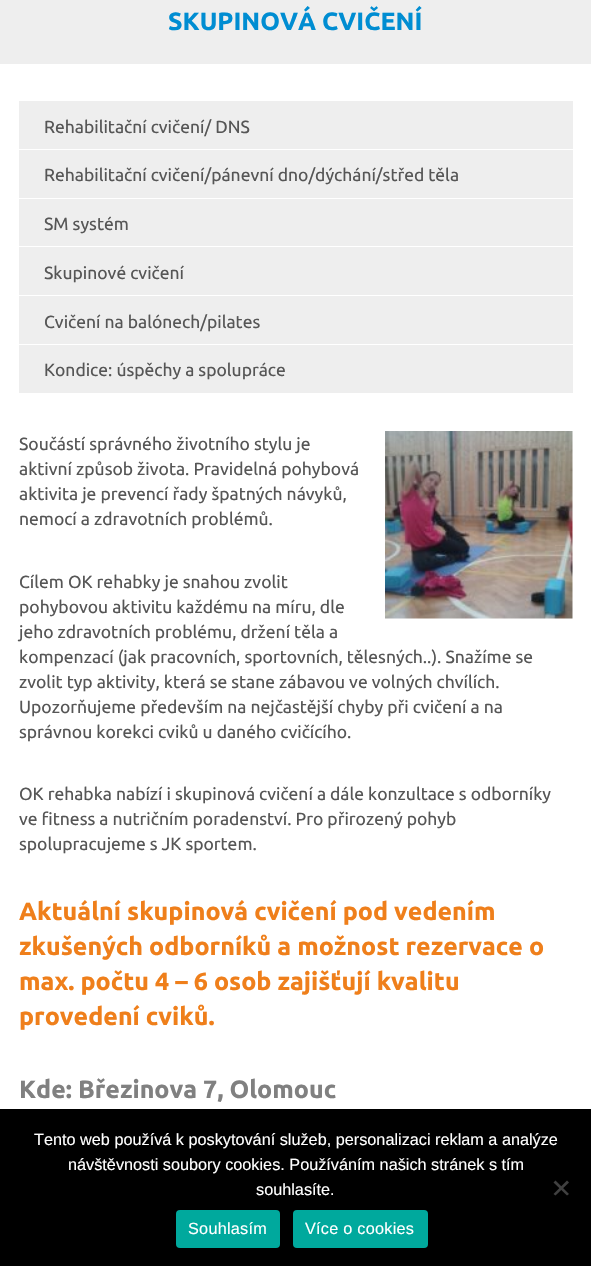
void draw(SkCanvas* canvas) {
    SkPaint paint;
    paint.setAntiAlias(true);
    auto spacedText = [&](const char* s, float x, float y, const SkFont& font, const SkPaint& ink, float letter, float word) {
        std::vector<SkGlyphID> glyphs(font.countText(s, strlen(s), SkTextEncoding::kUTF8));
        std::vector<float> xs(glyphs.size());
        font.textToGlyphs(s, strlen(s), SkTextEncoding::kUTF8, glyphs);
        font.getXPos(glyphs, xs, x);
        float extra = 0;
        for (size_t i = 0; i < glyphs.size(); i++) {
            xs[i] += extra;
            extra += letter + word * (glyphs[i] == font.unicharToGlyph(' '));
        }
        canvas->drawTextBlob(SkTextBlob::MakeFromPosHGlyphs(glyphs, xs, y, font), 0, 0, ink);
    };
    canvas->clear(0xFFFFFFFF);
    paint.setColor(0xFFEEEEEE);
    canvas->drawRect(SkRect::MakeXYWH(0, 0, 591, 64), paint);
    SkFont font1(fontMgr->matchFamilyStyle("Ubuntu", SkFontStyle::Bold()), 25);
    font1.setSubpixel(true);
    paint.setColor(0xFF008DD2);
    canvas->drawString("SKUPINOVÁ CVIČENÍ", 168, 30, font1, paint);
    paint.setColor(0xFFEEEEEE);
    canvas->drawRect(SkRect::MakeXYWH(19, 101, 554, 292), paint);
    paint.setColor(0xFFFFFFFF);
    canvas->drawRect(SkRect::MakeXYWH(19, 149, 554, 1), paint);
    SkFont font2(fontMgr->matchFamilyStyle("Ubuntu", SkFontStyle::Normal()), 17.5f);
    font2.setSubpixel(true);
    paint.setColor(0xFF565656);
    canvas->drawString("Rehabilitační cvičení/ DNS", 44, 133, font2, paint);
    paint.setColor(0xFFFFFFFF);
    canvas->drawRect(SkRect::MakeXYWH(19, 198, 554, 1), paint);
    paint.setColor(0xFF565656);
    canvas->drawString("Rehabilitační cvičení/pánevní dno/dýchání/střed těla", 44, 181, font2, paint);
    paint.setColor(0xFFFFFFFF);
    canvas->drawRect(SkRect::MakeXYWH(19, 246, 554, 1), paint);
    paint.setColor(0xFF565656);
    canvas->drawString("SM systém", 44, 230, font2, paint);
    paint.setColor(0xFFFFFFFF);
    canvas->drawRect(SkRect::MakeXYWH(19, 295, 554, 1), paint);
    paint.setColor(0xFF565656);
    canvas->drawString("Skupinové cvičení", 44, 279, font2, paint);
    paint.setColor(0xFFFFFFFF);
    canvas->drawRect(SkRect::MakeXYWH(19, 344, 554, 1), paint);
    paint.setColor(0xFF565656);
    canvas->drawString("Cvičení na balónech/pilates", 44, 328, font2, paint);
    canvas->drawString("Kondice: úspěchy a spolupráce", 44, 376, font2, paint);
    canvas->drawString("Součástí správného životního stylu je", 19, 450, font2, paint);
    canvas->drawImageRect(SkImages::DeferredFromEncodedData(SkData::MakeFromFileName("img1.png")), SkRect::MakeXYWH(385, 431, 188, 188), SkSamplingOptions());
    canvas->drawString("aktivní způsob života. Pravidelná pohybová", 19, 475, font2, paint);
    canvas->drawString("aktivita je prevencí řady špatných návyků,", 19, 500, font2, paint);
    canvas->drawString("nemocí a zdravotních problémů.", 19, 525, font2, paint);
    canvas->drawString("Cílem OK rehabky je snahou zvolit", 19, 588, font2, paint);
    canvas->drawString("pohybovou aktivitu každému na míru, dle", 19, 613, font2, paint);
    canvas->drawString("jeho zdravotních problému, držení těla a", 19, 638, font2, paint);
    canvas->drawString("kompenzací (jak pracovních, sportovních, tělesných..). Snažíme se", 19, 663, font2, paint);
    canvas->drawString("zvolit typ aktivity, která se stane zábavou ve volných chvílích.", 19, 688, font2, paint);
    canvas->drawString("Upozorňujeme především na nejčastější chyby při cvičení a na", 19, 713, font2, paint);
    canvas->drawString("správnou korekci cviků u daného cvičícího.", 19, 738, font2, paint);
    canvas->drawString("OK rehabka nabízí i skupinová cvičení a dále konzultace s odborníky", 19, 800, font2, paint);
    canvas->drawString("ve fitness a nutričním poradenství. Pro přirozený pohyb", 19, 825, font2, paint);
    canvas->drawString("spolupracujeme s JK sportem.", 19, 850, font2, paint);
    paint.setColor(0xFFEF7F1B);
    canvas->drawString("Aktuální skupinová cvičení pod vedením", 19, 920, font1, paint);
    canvas->drawString("zkušených odborníků a možnost rezervace o", 19, 955, font1, paint);
    canvas->drawString("max. počtu 4 – 6 osob zajišťují kvalitu", 19, 990, font1, paint);
    canvas->drawString("provedení cviků.", 19, 1025, font1, paint);
    paint.setColor(0xFF808080);
    canvas->drawString("Kde: Březinova 7, Olomouc", 19, 1098, font1, paint);
    paint.setColor(0xFF000000);
    canvas->drawRect(SkRect::MakeXYWH(0, 1109, 591, 157), paint);
    SkFont font3(fontMgr->matchFamilyStyle("Liberation Sans", SkFontStyle::Normal()), 16.25f);
    font3.setSubpixel(true);
    paint.setColor(0xFFFFFFFF);
    canvas->drawString("Tento web používá k poskytování služeb, personalizaci reklam a analýze", 34, 1145, font3, paint);
    canvas->drawString("návštěvnosti soubory cookies. Používáním našich stránek s tím", 68, 1170, font3, paint);
    canvas->drawString("souhlasíte.", 256, 1195, font3, paint);
    paint.setColor(0xFF404040);
    canvas->drawPath(SkPathBuilder().moveTo(567, 1180.5f).lineTo(569, 1182.5f).lineTo(555.5f, 1195.5f).lineTo(553.5f, 1194).close().detach(), paint);
    canvas->drawPath(SkPathBuilder().moveTo(553.5f, 1182.5f).lineTo(555.5f, 1180.5f).lineTo(569, 1194).lineTo(567, 1195.5f).close().detach(), paint);
    paint.setColor(0xFF00A99D);
    canvas->drawRoundRect(SkRect::MakeXYWH(176, 1210, 104, 38), 4, 4, paint);
    paint.setColor(0xFFFFFFFF);
    spacedText("Souhlasím", 188, 1234, font3, paint, 0.25f, 0);
    paint.setColor(0xFF00A99D);
    canvas->drawRoundRect(SkRect::MakeXYWH(293, 1210, 135, 38), 4, 4, paint);
    paint.setColor(0xFFFFFFFF);
    spacedText("Více o cookies", 305, 1234, font3, paint, 0.25f, 0);
}
